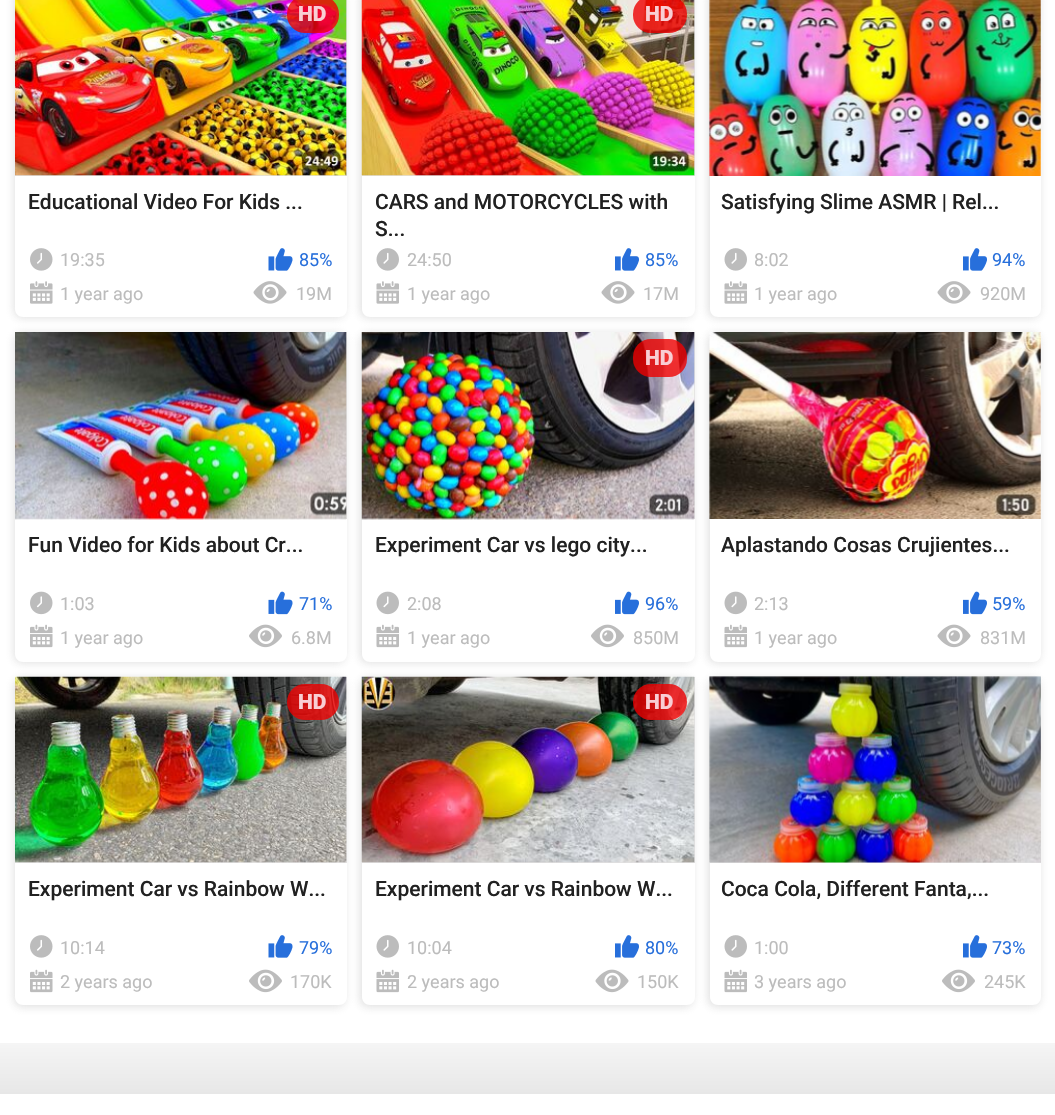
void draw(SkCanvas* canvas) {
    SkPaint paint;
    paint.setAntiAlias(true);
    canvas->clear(0xFFFFFFFF);
    paint.setColor(0xA6CFCFCF);
    paint.setMaskFilter(SkMaskFilter::MakeBlur(kNormal_SkBlurStyle, 4));
    canvas->drawRoundRect(SkRect::MakeXYWH(14, -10, 331, 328), 8, 8, paint);
    paint.setMaskFilter(nullptr);
    paint.setColor(0xFFFFFFFF);
    canvas->drawPath(SkPathBuilder().moveTo(15, -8).lineTo(347, -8).lineTo(347, 309).cubicTo(347, 313.5f, 343.5f, 317, 339, 317).lineTo(23, 317).cubicTo(18.5f, 317, 15, 313.5f, 15, 309).close().detach(), paint);
    paint.setColor(0xFFE0DFDF);
    canvas->drawRect(SkRect::MakeXYWH(15, 0, 332, 176), paint);
    canvas->drawImageRect(SkImages::DeferredFromEncodedData(SkData::MakeFromFileName("img1.png")), SkRect::MakeXYWH(15, 0, 332, 176), SkSamplingOptions());
    paint.setColor(0xCCEE0000);
    canvas->drawRoundRect(SkRect::MakeXYWH(287, -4, 52, 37), 18, 18, paint);
    SkFont font1(fontMgr->matchFamilyStyle("Roboto", SkFontStyle(900, SkFontStyle::kNormal_Width, SkFontStyle::kUpright_Slant)), 21);
    font1.setSubpixel(true);
    paint.setColor(0xFFF9CED4);
    canvas->drawString("HD", 298, 21, font1, paint);
    SkFont font2(fontMgr->matchFamilyStyle("Roboto", SkFontStyle(500, SkFontStyle::kNormal_Width, SkFontStyle::kUpright_Slant)), 21);
    font2.setSubpixel(true);
    paint.setColor(0xFF212121);
    canvas->drawString("Educational Video For Kids ...", 28, 209, font2, paint);
    canvas->drawImageRect(SkImages::DeferredFromEncodedData(SkData::MakeFromFileName("img2.png")), SkRect::MakeXYWH(30, 248, 23, 23), SkSamplingOptions());
    SkFont font3(fontMgr->matchFamilyStyle("Roboto", SkFontStyle::Normal()), 18);
    font3.setSubpixel(true);
    paint.setColor(0xFFBCBCBC);
    canvas->drawString("19:35", 60, 266, font3, paint);
    canvas->drawImageRect(SkImages::DeferredFromEncodedData(SkData::MakeFromFileName("img3.png")), SkRect::MakeXYWH(268, 248, 25, 23), SkSamplingOptions());
    paint.setColor(0xFF276FDB);
    canvas->drawString("85%", 299, 266, font3, paint);
    canvas->drawImageRect(SkImages::DeferredFromEncodedData(SkData::MakeFromFileName("img4.png")), SkRect::MakeXYWH(30, 281, 23, 23), SkSamplingOptions());
    paint.setColor(0xFFBCBCBC);
    canvas->drawString("1 year ago", 60, 300, font3, paint);
    canvas->drawImageRect(SkImages::DeferredFromEncodedData(SkData::MakeFromFileName("img5.png")), SkRect::MakeXYWH(253, 281, 34, 23), SkSamplingOptions());
    canvas->drawString("19M", 296, 300, font3, paint);
    paint.setColor(0xA6CFCFCF);
    paint.setMaskFilter(SkMaskFilter::MakeBlur(kNormal_SkBlurStyle, 4));
    canvas->drawRoundRect(SkRect::MakeXYWH(360, -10, 333, 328), 8, 8, paint);
    paint.setMaskFilter(nullptr);
    paint.setColor(0xFFFFFFFF);
    canvas->drawPath(SkPathBuilder().moveTo(362, -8).lineTo(695, -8).lineTo(695, 309).cubicTo(695, 313.5f, 691.5f, 317, 687, 317).lineTo(370, 317).cubicTo(365.5f, 317, 362, 313.5f, 362, 309).close().detach(), paint);
    paint.setColor(0xFFE0DFDF);
    canvas->drawRect(SkRect::MakeXYWH(362, 0, 333, 176), paint);
    canvas->drawImageRect(SkImages::DeferredFromEncodedData(SkData::MakeFromFileName("img6.png")), SkRect::MakeXYWH(361, 0, 334, 176), SkSamplingOptions());
    paint.setColor(0xCCEE0000);
    canvas->drawRoundRect(SkRect::MakeXYWH(633, -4, 54, 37), 18, 18, paint);
    paint.setColor(0xFFF9CED4);
    canvas->drawString("HD", 645, 21, font1, paint);
    paint.setColor(0xFF212121);
    canvas->drawString("CARS and MOTORCYCLES with", 375, 209, font2, paint);
    canvas->drawString("S...", 375, 236, font2, paint);
    canvas->drawImageRect(SkImages::DeferredFromEncodedData(SkData::MakeFromFileName("img7.png")), SkRect::MakeXYWH(376, 248, 23, 23), SkSamplingOptions());
    paint.setColor(0xFFBCBCBC);
    canvas->drawString("24:50", 407, 266, font3, paint);
    canvas->drawImageRect(SkImages::DeferredFromEncodedData(SkData::MakeFromFileName("img8.png")), SkRect::MakeXYWH(615, 248, 24, 23), SkSamplingOptions());
    paint.setColor(0xFF276FDB);
    canvas->drawString("85%", 645, 266, font3, paint);
    canvas->drawImageRect(SkImages::DeferredFromEncodedData(SkData::MakeFromFileName("img9.png")), SkRect::MakeXYWH(376, 281, 23, 23), SkSamplingOptions());
    paint.setColor(0xFFBCBCBC);
    canvas->drawString("1 year ago", 407, 300, font3, paint);
    canvas->drawImageRect(SkImages::DeferredFromEncodedData(SkData::MakeFromFileName("img5.png")), SkRect::MakeXYWH(601, 281, 34, 23), SkSamplingOptions());
    canvas->drawString("17M", 643, 300, font3, paint);
    paint.setColor(0xA6CFCFCF);
    paint.setMaskFilter(SkMaskFilter::MakeBlur(kNormal_SkBlurStyle, 4));
    canvas->drawRoundRect(SkRect::MakeXYWH(708, -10, 332, 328), 8, 8, paint);
    paint.setMaskFilter(nullptr);
    paint.setColor(0xFFFFFFFF);
    canvas->drawPath(SkPathBuilder().moveTo(710, -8).lineTo(1041, -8).lineTo(1041, 309).cubicTo(1041, 313.5f, 1037.5f, 317, 1033, 317).lineTo(718, 317).cubicTo(713.5f, 317, 710, 313.5f, 710, 309).close().detach(), paint);
    canvas->drawImageRect(SkImages::DeferredFromEncodedData(SkData::MakeFromFileName("img10.png")), SkRect::MakeXYWH(709, 0, 332, 176), SkSamplingOptions());
    paint.setColor(0xFF212121);
    canvas->drawString("Satisfying Slime ASMR | Rel...", 721, 209, font2, paint);
    canvas->drawImageRect(SkImages::DeferredFromEncodedData(SkData::MakeFromFileName("img7.png")), SkRect::MakeXYWH(724, 248, 23, 23), SkSamplingOptions());
    paint.setColor(0xFFBCBCBC);
    canvas->drawString("8:02", 754, 266, font3, paint);
    canvas->drawImageRect(SkImages::DeferredFromEncodedData(SkData::MakeFromFileName("img8.png")), SkRect::MakeXYWH(963, 248, 24, 23), SkSamplingOptions());
    paint.setColor(0xFF276FDB);
    canvas->drawString("94%", 992, 266, font3, paint);
    canvas->drawImageRect(SkImages::DeferredFromEncodedData(SkData::MakeFromFileName("img9.png")), SkRect::MakeXYWH(724, 281, 23, 23), SkSamplingOptions());
    paint.setColor(0xFFBCBCBC);
    canvas->drawString("1 year ago", 754, 300, font3, paint);
    canvas->drawImageRect(SkImages::DeferredFromEncodedData(SkData::MakeFromFileName("img5.png")), SkRect::MakeXYWH(937, 281, 34, 23), SkSamplingOptions());
    canvas->drawString("920M", 980, 300, font3, paint);
    paint.setColor(0xA6CFCFCF);
    paint.setMaskFilter(SkMaskFilter::MakeBlur(kNormal_SkBlurStyle, 4));
    canvas->drawRoundRect(SkRect::MakeXYWH(14, 333, 331, 330), 8, 8, paint);
    paint.setMaskFilter(nullptr);
    paint.setColor(0xFFFFFFFF);
    canvas->drawPath(SkPathBuilder().moveTo(15, 332).lineTo(347, 332).lineTo(347, 654).cubicTo(347, 658.5f, 343.5f, 662, 339, 662).lineTo(23, 662).cubicTo(18.5f, 662, 15, 658.5f, 15, 654).close().detach(), paint);
    paint.setColor(0xFFE0DFDF);
    canvas->drawRect(SkRect::MakeXYWH(15, 332, 332, 187), paint);
    canvas->drawImageRect(SkImages::DeferredFromEncodedData(SkData::MakeFromFileName("img11.png")), SkRect::MakeXYWH(15, 332, 332, 188), SkSamplingOptions());
    paint.setColor(0xFF212121);
    canvas->drawString("Fun Video for Kids about Cr...", 28, 552, font2, paint);
    canvas->drawImageRect(SkImages::DeferredFromEncodedData(SkData::MakeFromFileName("img12.png")), SkRect::MakeXYWH(30, 591, 23, 24), SkSamplingOptions());
    paint.setColor(0xFFBCBCBC);
    canvas->drawString("1:03", 60, 610, font3, paint);
    canvas->drawImageRect(SkImages::DeferredFromEncodedData(SkData::MakeFromFileName("img13.png")), SkRect::MakeXYWH(268, 591, 25, 24), SkSamplingOptions());
    paint.setColor(0xFF276FDB);
    canvas->drawString("71%", 299, 610, font3, paint);
    canvas->drawImageRect(SkImages::DeferredFromEncodedData(SkData::MakeFromFileName("img14.png")), SkRect::MakeXYWH(30, 624, 23, 24), SkSamplingOptions());
    paint.setColor(0xFFBCBCBC);
    canvas->drawString("1 year ago", 60, 644, font3, paint);
    canvas->drawImageRect(SkImages::DeferredFromEncodedData(SkData::MakeFromFileName("img15.png")), SkRect::MakeXYWH(249, 624, 33, 24), SkSamplingOptions());
    canvas->drawString("6.8M", 291, 644, font3, paint);
    paint.setColor(0xA6CFCFCF);
    paint.setMaskFilter(SkMaskFilter::MakeBlur(kNormal_SkBlurStyle, 4));
    canvas->drawRoundRect(SkRect::MakeXYWH(360, 333, 333, 330), 8, 8, paint);
    paint.setMaskFilter(nullptr);
    paint.setColor(0xFFFFFFFF);
    canvas->drawPath(SkPathBuilder().moveTo(362, 332).lineTo(695, 332).lineTo(695, 654).cubicTo(695, 658.5f, 691.5f, 662, 687, 662).lineTo(370, 662).cubicTo(365.5f, 662, 362, 658.5f, 362, 654).close().detach(), paint);
    paint.setColor(0xFFE0DFDF);
    canvas->drawRect(SkRect::MakeXYWH(362, 332, 333, 187), paint);
    canvas->drawImageRect(SkImages::DeferredFromEncodedData(SkData::MakeFromFileName("img16.png")), SkRect::MakeXYWH(361, 332, 334, 188), SkSamplingOptions());
    paint.setColor(0xCCEE0000);
    canvas->drawRoundRect(SkRect::MakeXYWH(633, 339, 54, 38), 18, 18, paint);
    paint.setColor(0xFFF9CED4);
    canvas->drawString("HD", 645, 365, font1, paint);
    paint.setColor(0xFF212121);
    canvas->drawString("Experiment Car vs lego city...", 375, 552, font2, paint);
    canvas->drawImageRect(SkImages::DeferredFromEncodedData(SkData::MakeFromFileName("img17.png")), SkRect::MakeXYWH(376, 591, 23, 24), SkSamplingOptions());
    paint.setColor(0xFFBCBCBC);
    canvas->drawString("2:08", 407, 610, font3, paint);
    canvas->drawImageRect(SkImages::DeferredFromEncodedData(SkData::MakeFromFileName("img18.png")), SkRect::MakeXYWH(615, 591, 24, 24), SkSamplingOptions());
    paint.setColor(0xFF276FDB);
    canvas->drawString("96%", 645, 610, font3, paint);
    canvas->drawImageRect(SkImages::DeferredFromEncodedData(SkData::MakeFromFileName("img19.png")), SkRect::MakeXYWH(376, 624, 23, 24), SkSamplingOptions());
    paint.setColor(0xFFBCBCBC);
    canvas->drawString("1 year ago", 407, 644, font3, paint);
    canvas->drawImageRect(SkImages::DeferredFromEncodedData(SkData::MakeFromFileName("img15.png")), SkRect::MakeXYWH(591, 624, 33, 24), SkSamplingOptions());
    canvas->drawString("850M", 633, 644, font3, paint);
    paint.setColor(0xA6CFCFCF);
    paint.setMaskFilter(SkMaskFilter::MakeBlur(kNormal_SkBlurStyle, 4));
    canvas->drawRoundRect(SkRect::MakeXYWH(708, 333, 332, 330), 8, 8, paint);
    paint.setMaskFilter(nullptr);
    paint.setColor(0xFFFFFFFF);
    canvas->drawPath(SkPathBuilder().moveTo(710, 332).lineTo(1041, 332).lineTo(1041, 654).cubicTo(1041, 658.5f, 1037.5f, 662, 1033, 662).lineTo(718, 662).cubicTo(713.5f, 662, 710, 658.5f, 710, 654).close().detach(), paint);
    canvas->drawImageRect(SkImages::DeferredFromEncodedData(SkData::MakeFromFileName("img20.png")), SkRect::MakeXYWH(709, 332, 332, 187), SkSamplingOptions());
    paint.setColor(0xFF212121);
    canvas->drawString("Aplastando Cosas Crujientes...", 721, 552, font2, paint);
    canvas->drawImageRect(SkImages::DeferredFromEncodedData(SkData::MakeFromFileName("img17.png")), SkRect::MakeXYWH(724, 591, 23, 24), SkSamplingOptions());
    paint.setColor(0xFFBCBCBC);
    canvas->drawString("2:13", 754, 610, font3, paint);
    canvas->drawImageRect(SkImages::DeferredFromEncodedData(SkData::MakeFromFileName("img18.png")), SkRect::MakeXYWH(963, 591, 24, 24), SkSamplingOptions());
    paint.setColor(0xFF276FDB);
    canvas->drawString("59%", 992, 610, font3, paint);
    canvas->drawImageRect(SkImages::DeferredFromEncodedData(SkData::MakeFromFileName("img19.png")), SkRect::MakeXYWH(724, 624, 23, 24), SkSamplingOptions());
    paint.setColor(0xFFBCBCBC);
    canvas->drawString("1 year ago", 754, 644, font3, paint);
    canvas->drawImageRect(SkImages::DeferredFromEncodedData(SkData::MakeFromFileName("img21.png")), SkRect::MakeXYWH(937, 624, 34, 24), SkSamplingOptions());
    canvas->drawString("831M", 980, 644, font3, paint);
    paint.setColor(0xA6CFCFCF);
    paint.setMaskFilter(SkMaskFilter::MakeBlur(kNormal_SkBlurStyle, 4));
    canvas->drawRoundRect(SkRect::MakeXYWH(14, 678, 331, 329), 8, 8, paint);
    paint.setMaskFilter(nullptr);
    paint.setColor(0xFFFFFFFF);
    canvas->drawPath(SkPathBuilder().moveTo(15, 677).lineTo(347, 677).lineTo(347, 997).cubicTo(347, 1001.5f, 343.5f, 1005, 339, 1005).lineTo(23, 1005).cubicTo(18.5f, 1005, 15, 1001.5f, 15, 997).close().detach(), paint);
    paint.setColor(0xFFE0DFDF);
    canvas->drawRect(SkRect::MakeXYWH(15, 677, 332, 186), paint);
    canvas->drawImageRect(SkImages::DeferredFromEncodedData(SkData::MakeFromFileName("img22.png")), SkRect::MakeXYWH(15, 676, 332, 187), SkSamplingOptions());
    paint.setColor(0xCCEE0000);
    canvas->drawRoundRect(SkRect::MakeXYWH(287, 684, 52, 36), 18, 18, paint);
    paint.setColor(0xFFF9CED4);
    canvas->drawString("HD", 298, 709, font1, paint);
    paint.setColor(0xFF212121);
    canvas->drawString("Experiment Car vs Rainbow W...", 28, 896, font2, paint);
    canvas->drawImageRect(SkImages::DeferredFromEncodedData(SkData::MakeFromFileName("img2.png")), SkRect::MakeXYWH(30, 935, 23, 23), SkSamplingOptions());
    paint.setColor(0xFFBCBCBC);
    canvas->drawString("10:14", 60, 954, font3, paint);
    canvas->drawImageRect(SkImages::DeferredFromEncodedData(SkData::MakeFromFileName("img3.png")), SkRect::MakeXYWH(268, 935, 25, 23), SkSamplingOptions());
    paint.setColor(0xFF276FDB);
    canvas->drawString("79%", 299, 954, font3, paint);
    canvas->drawImageRect(SkImages::DeferredFromEncodedData(SkData::MakeFromFileName("img14.png")), SkRect::MakeXYWH(30, 969, 23, 24), SkSamplingOptions());
    paint.setColor(0xFFBCBCBC);
    canvas->drawString("2 years ago", 60, 988, font3, paint);
    canvas->drawImageRect(SkImages::DeferredFromEncodedData(SkData::MakeFromFileName("img15.png")), SkRect::MakeXYWH(249, 969, 33, 24), SkSamplingOptions());
    canvas->drawString("170K", 290, 988, font3, paint);
    paint.setColor(0xA6CFCFCF);
    paint.setMaskFilter(SkMaskFilter::MakeBlur(kNormal_SkBlurStyle, 4));
    canvas->drawRoundRect(SkRect::MakeXYWH(360, 678, 333, 329), 8, 8, paint);
    paint.setMaskFilter(nullptr);
    paint.setColor(0xFFFFFFFF);
    canvas->drawPath(SkPathBuilder().moveTo(362, 677).lineTo(695, 677).lineTo(695, 997).cubicTo(695, 1001.5f, 691.5f, 1005, 687, 1005).lineTo(370, 1005).cubicTo(365.5f, 1005, 362, 1001.5f, 362, 997).close().detach(), paint);
    paint.setColor(0xFFE0DFDF);
    canvas->drawRect(SkRect::MakeXYWH(362, 677, 333, 186), paint);
    canvas->drawImageRect(SkImages::DeferredFromEncodedData(SkData::MakeFromFileName("img23.png")), SkRect::MakeXYWH(361, 676, 334, 187), SkSamplingOptions());
    paint.setColor(0xCCEE0000);
    canvas->drawRoundRect(SkRect::MakeXYWH(633, 684, 54, 36), 18, 18, paint);
    paint.setColor(0xFFF9CED4);
    canvas->drawString("HD", 645, 709, font1, paint);
    paint.setColor(0xFF212121);
    canvas->drawString("Experiment Car vs Rainbow W...", 375, 896, font2, paint);
    canvas->drawImageRect(SkImages::DeferredFromEncodedData(SkData::MakeFromFileName("img7.png")), SkRect::MakeXYWH(376, 935, 23, 23), SkSamplingOptions());
    paint.setColor(0xFFBCBCBC);
    canvas->drawString("10:04", 407, 954, font3, paint);
    canvas->drawImageRect(SkImages::DeferredFromEncodedData(SkData::MakeFromFileName("img8.png")), SkRect::MakeXYWH(615, 935, 24, 23), SkSamplingOptions());
    paint.setColor(0xFF276FDB);
    canvas->drawString("80%", 645, 954, font3, paint);
    canvas->drawImageRect(SkImages::DeferredFromEncodedData(SkData::MakeFromFileName("img19.png")), SkRect::MakeXYWH(376, 969, 23, 24), SkSamplingOptions());
    paint.setColor(0xFFBCBCBC);
    canvas->drawString("2 years ago", 407, 988, font3, paint);
    canvas->drawImageRect(SkImages::DeferredFromEncodedData(SkData::MakeFromFileName("img21.png")), SkRect::MakeXYWH(595, 969, 34, 24), SkSamplingOptions());
    canvas->drawString("150K", 637, 988, font3, paint);
    paint.setColor(0xA6CFCFCF);
    paint.setMaskFilter(SkMaskFilter::MakeBlur(kNormal_SkBlurStyle, 4));
    canvas->drawRoundRect(SkRect::MakeXYWH(708, 678, 332, 329), 8, 8, paint);
    paint.setMaskFilter(nullptr);
    paint.setColor(0xFFFFFFFF);
    canvas->drawPath(SkPathBuilder().moveTo(710, 677).lineTo(1041, 677).lineTo(1041, 997).cubicTo(1041, 1001.5f, 1037.5f, 1005, 1033, 1005).lineTo(718, 1005).cubicTo(713.5f, 1005, 710, 1001.5f, 710, 997).close().detach(), paint);
    paint.setColor(0xFFE0DFDF);
    canvas->drawRect(SkRect::MakeXYWH(710, 677, 331, 186), paint);
    canvas->drawImageRect(SkImages::DeferredFromEncodedData(SkData::MakeFromFileName("img24.png")), SkRect::MakeXYWH(709, 676, 332, 187), SkSamplingOptions());
    paint.setColor(0xFF212121);
    canvas->drawString("Coca Cola, Different Fanta,...", 721, 896, font2, paint);
    canvas->drawImageRect(SkImages::DeferredFromEncodedData(SkData::MakeFromFileName("img7.png")), SkRect::MakeXYWH(724, 935, 23, 23), SkSamplingOptions());
    paint.setColor(0xFFBCBCBC);
    canvas->drawString("1:00", 754, 954, font3, paint);
    canvas->drawImageRect(SkImages::DeferredFromEncodedData(SkData::MakeFromFileName("img8.png")), SkRect::MakeXYWH(963, 935, 24, 23), SkSamplingOptions());
    paint.setColor(0xFF276FDB);
    canvas->drawString("73%", 992, 954, font3, paint);
    canvas->drawImageRect(SkImages::DeferredFromEncodedData(SkData::MakeFromFileName("img19.png")), SkRect::MakeXYWH(724, 969, 23, 24), SkSamplingOptions());
    paint.setColor(0xFFBCBCBC);
    canvas->drawString("3 years ago", 754, 988, font3, paint);
    canvas->drawImageRect(SkImages::DeferredFromEncodedData(SkData::MakeFromFileName("img15.png")), SkRect::MakeXYWH(942, 969, 33, 24), SkSamplingOptions());
    canvas->drawString("245K", 984, 988, font3, paint);
    {
        const SkColor colors[] = {0xFFF5F5F5, 0xFFE7E7E7};
        const float stops[] = {0, 1};
        const SkPoint ends[] = {{528, 1043}, {528, 1094}};
        paint.setShader(SkGradientShader::MakeLinear(ends, colors, stops, 2, SkTileMode::kClamp));
        paint.setAlpha(255);
    }
    canvas->drawRect(SkRect::MakeXYWH(0, 1043, 1055, 51), paint);
}
